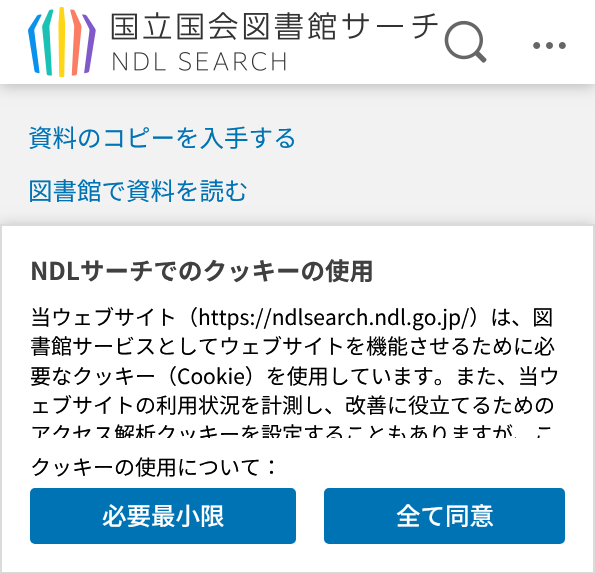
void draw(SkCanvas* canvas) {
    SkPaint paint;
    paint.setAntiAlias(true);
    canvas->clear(0xFFF2F2F2);
    paint.setColor(0x3D000000);
    paint.setMaskFilter(SkMaskFilter::MakeBlur(kNormal_SkBlurStyle, 7));
    canvas->drawRect(SkRect::MakeXYWH(0, 2, 595, 84), paint);
    paint.setMaskFilter(nullptr);
    paint.setColor(0xFFFFFFFF);
    canvas->drawRect(SkRect::MakeXYWH(0, 0, 595, 84), paint);
    canvas->drawImageRect(SkImages::DeferredFromEncodedData(SkData::MakeFromFileName("img1.png")), SkRect::MakeXYWH(28, 7, 410, 70), SkSamplingOptions());
    canvas->drawImageRect(SkImages::DeferredFromEncodedData(SkData::MakeFromFileName("img2.png")), SkRect::MakeXYWH(444, 20, 43, 43), SkSamplingOptions());
    canvas->drawImageRect(SkImages::DeferredFromEncodedData(SkData::MakeFromFileName("img3.png")), SkRect::MakeXYWH(533, 42, 33, 7), SkSamplingOptions());
    SkFont font1(fontMgr->matchFamilyStyle("Noto Sans JP", SkFontStyle::Normal()), 24.5f);
    font1.setSubpixel(true);
    paint.setColor(0xFF0073B5);
    canvas->drawString("資料のコピーを入手する", 28, 147, font1, paint);
    canvas->drawString("図書館で資料を読む", 28, 200, font1, paint);
    paint.setColor(0x3D000000);
    paint.setMaskFilter(SkMaskFilter::MakeBlur(kNormal_SkBlurStyle, 7));
    canvas->drawRect(SkRect::MakeXYWH(0, 226, 595, 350), paint);
    paint.setMaskFilter(nullptr);
    paint.setColor(0xFFFFFFFF);
    canvas->drawRect(SkRect::MakeXYWH(1, 225, 593, 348), paint);
    paint.setStyle(SkPaint::kStroke_Style);
    paint.setStrokeWidth(2);
    paint.setColor(0xFFDBDBDB);
    canvas->drawRect(SkRect::MakeXYWH(1, 225, 593, 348), paint);
    SkFont font2(fontMgr->matchFamilyStyle("Noto Sans JP", SkFontStyle::Bold()), 24.5f);
    font2.setSubpixel(true);
    paint.setStyle(SkPaint::kFill_Style);
    paint.setColor(0xFF404040);
    canvas->drawString("NDLサーチでのクッキーの使用", 30, 280, font2, paint);
    SkFont font3(fontMgr->matchFamilyStyle("Noto Sans JP", SkFontStyle::Normal()), 21);
    font3.setSubpixel(true);
    paint.setColor(0xFF000000);
    canvas->drawString("当ウェブサイト（https://ndlsearch.ndl.go.jp/）は、図", 30, 325, font3, paint);
    canvas->drawString("書館サービスとしてウェブサイトを機能させるために必", 30, 354, font3, paint);
    canvas->drawString("要なクッキー（Cookie）を使用しています。また、当ウ", 30, 384, font3, paint);
    canvas->drawString("ェブサイトの利用状況を計測し、改善に役立てるための", 30, 413, font3, paint);
    canvas->save();
    canvas->clipRect(SkRect::MakeXYWH(2, 303, 591, 135));
    canvas->drawString("アクセス解析クッキーを設定することもありますが、こ", 30, 442, font3, paint);
    canvas->restore();
    canvas->drawString("クッキーの使用について：", 30, 475, font3, paint);
    paint.setColor(0xFF0073B5);
    canvas->drawRoundRect(SkRect::MakeXYWH(31, 489, 264, 54), 4, 4, paint);
    paint.setStyle(SkPaint::kStroke_Style);
    canvas->drawRoundRect(SkRect::MakeXYWH(31, 489, 264, 54), 4, 4, paint);
    SkFont font4(fontMgr->matchFamilyStyle("Noto Sans JP", SkFontStyle(500, SkFontStyle::kNormal_Width, SkFontStyle::kUpright_Slant)), 24.5f);
    font4.setSubpixel(true);
    paint.setStyle(SkPaint::kFill_Style);
    paint.setColor(0xFFFFFFFF);
    canvas->drawString("必要最小限", 102, 525, font4, paint);
    paint.setColor(0xFF0073B5);
    canvas->drawRoundRect(SkRect::MakeXYWH(325, 489, 239, 54), 4, 4, paint);
    paint.setStyle(SkPaint::kStroke_Style);
    canvas->drawRoundRect(SkRect::MakeXYWH(325, 489, 239, 54), 4, 4, paint);
    paint.setStyle(SkPaint::kFill_Style);
    paint.setColor(0xFFFFFFFF);
    canvas->drawString("全て同意", 396, 525, font4, paint);
}
